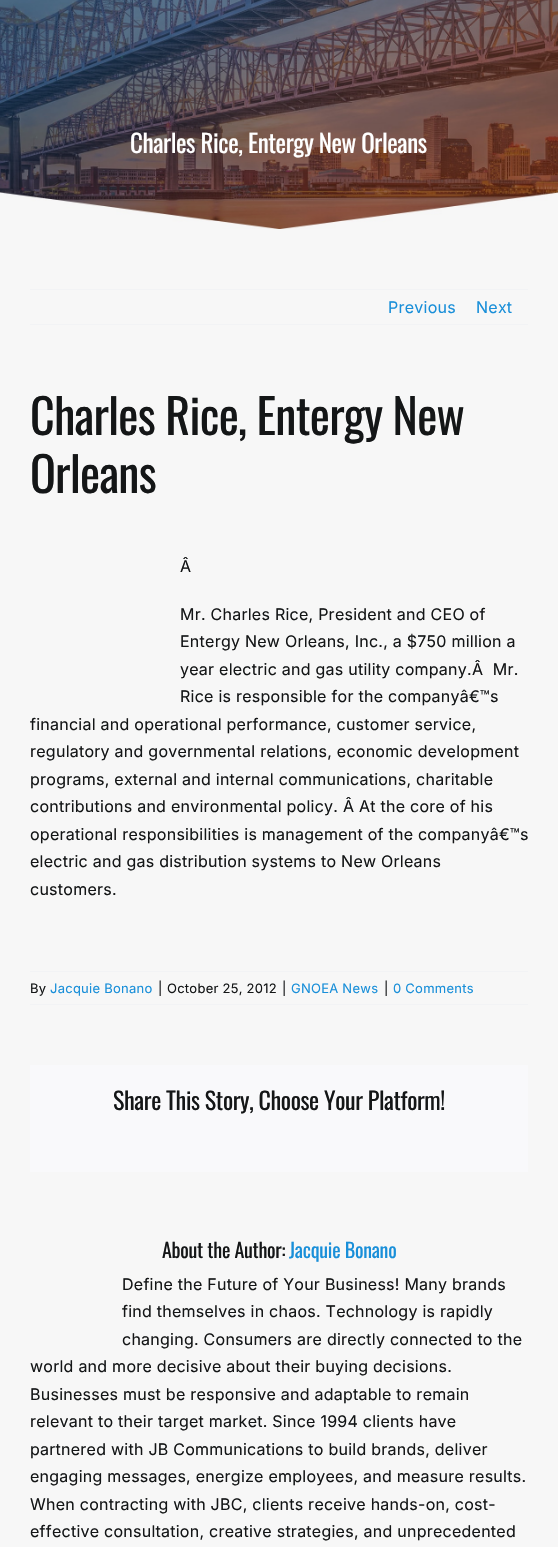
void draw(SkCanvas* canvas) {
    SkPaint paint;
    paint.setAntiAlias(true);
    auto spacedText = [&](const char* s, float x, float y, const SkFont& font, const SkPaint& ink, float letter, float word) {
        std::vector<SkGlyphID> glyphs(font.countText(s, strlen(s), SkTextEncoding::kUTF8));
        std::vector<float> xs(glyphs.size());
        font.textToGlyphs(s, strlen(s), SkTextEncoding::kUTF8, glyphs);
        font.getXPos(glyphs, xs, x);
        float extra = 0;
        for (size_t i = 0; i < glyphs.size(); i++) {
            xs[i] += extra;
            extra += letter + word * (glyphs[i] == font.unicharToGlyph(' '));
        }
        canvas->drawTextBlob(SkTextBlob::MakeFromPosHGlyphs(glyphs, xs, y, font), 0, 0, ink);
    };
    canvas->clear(0xFFF7F7F7);
    canvas->drawImageRect(SkImages::DeferredFromEncodedData(SkData::MakeFromFileName("img1.png")), SkRect::MakeXYWH(0, 0, 558, 229), SkSamplingOptions());
    SkFont font1(fontMgr->matchFamilyStyle("Oswald", SkFontStyle::Normal()), 25);
    font1.setSubpixel(true);
    paint.setColor(0xFFFFFFFF);
    spacedText("Charles Rice, Entergy New Orleans", 130, 153, font1, paint, -0.4f, 0);
    paint.setColor(0xFFF2F3F5);
    canvas->drawRect(SkRect::MakeXYWH(30, 289, 498, 1), paint);
    canvas->drawRect(SkRect::MakeXYWH(30, 324, 498, 1), paint);
    SkFont font2(fontMgr->matchFamilyStyle("Inter", SkFontStyle::Normal()), 16);
    font2.setSubpixel(true);
    paint.setColor(0xFF198FD9);
    spacedText("Previous", 388, 313, font2, paint, 0.25f, 0);
    spacedText("Next", 476, 313, font2, paint, 0.25f, 0);
    SkFont font3(fontMgr->matchFamilyStyle("Oswald", SkFontStyle::Normal()), 48);
    font3.setSubpixel(true);
    paint.setColor(0xFF141617);
    spacedText("Charles Rice, Entergy New", 30, 435, font3, paint, -0.75f, 0);
    spacedText("Orleans", 30, 493, font3, paint, -0.75f, 0);
    spacedText("Â", 180, 572, font2, paint, 0.25f, 0);
    spacedText("Mr. Charles Rice, President and CEO of", 180, 620, font2, paint, 0.25f, 0);
    spacedText("Entergy New Orleans, Inc., a $750 million a", 180, 647, font2, paint, 0.25f, 0);
    spacedText("year electric and gas utility company.Â  Mr.", 180, 675, font2, paint, 0.25f, 0);
    spacedText("Rice is responsible for the companyâ€™s", 180, 702, font2, paint, 0.25f, 0);
    spacedText("financial and operational performance, customer service,", 30, 730, font2, paint, 0.25f, 0);
    spacedText("regulatory and governmental relations, economic development", 30, 757, font2, paint, 0.25f, 0);
    spacedText("programs, external and internal communications, charitable", 30, 785, font2, paint, 0.25f, 0);
    spacedText("contributions and environmental policy. Â At the core of his", 30, 812, font2, paint, 0.25f, 0);
    spacedText("operational responsibilities is management of the companyâ€™s", 30, 840, font2, paint, 0.25f, 0);
    spacedText("electric and gas distribution systems to New Orleans", 30, 867, font2, paint, 0.25f, 0);
    spacedText("customers.", 30, 895, font2, paint, 0.25f, 0);
    paint.setColor(0xFFF2F3F5);
    canvas->drawRect(SkRect::MakeXYWH(30, 971, 498, 1), paint);
    canvas->drawRect(SkRect::MakeXYWH(30, 1004, 498, 1), paint);
    SkFont font4(fontMgr->matchFamilyStyle("Inter", SkFontStyle::Normal()), 13);
    font4.setSubpixel(true);
    paint.setColor(0xFF141617);
    spacedText("By", 30, 993, font4, paint, 0.25f, 0);
    paint.setColor(0xFF198FD9);
    spacedText("Jacquie Bonano", 50, 993, font4, paint, 0.25f, 0);
    paint.setColor(0xFF141617);
    spacedText("|", 158, 993, font4, paint, 0.25f, 0);
    spacedText("October 25, 2012", 167, 993, font4, paint, 0.25f, 0);
    spacedText("|", 282, 993, font4, paint, 0.25f, 0);
    paint.setColor(0xFF198FD9);
    spacedText("GNOEA News", 291, 993, font4, paint, 0.25f, 0);
    paint.setColor(0xFF141617);
    spacedText("|", 384, 993, font4, paint, 0.25f, 0);
    paint.setColor(0xFF198FD9);
    spacedText("0 Comments", 393, 993, font4, paint, 0.25f, 0);
    paint.setColor(0xFFF9F9FB);
    canvas->drawRect(SkRect::MakeXYWH(30, 1065, 498, 107), paint);
    SkFont font5(fontMgr->matchFamilyStyle("Oswald", SkFontStyle::Normal()), 24);
    font5.setSubpixel(true);
    paint.setColor(0xFF141617);
    spacedText("Share This Story, Choose Your Platform!", 113, 1110, font5, paint, -0.35f, 0);
    SkFont font6(fontMgr->matchFamilyStyle("Oswald", SkFontStyle::Normal()), 20);
    font6.setSubpixel(true);
    spacedText("About the Author:", 162, 1258, font6, paint, -0.25f, 0);
    paint.setColor(0xFF198FD9);
    spacedText("Jacquie Bonano", 289, 1258, font6, paint, -0.25f, 0);
    paint.setColor(0xFF141617);
    spacedText("Define the Future of Your Business! Many brands", 122, 1290, font2, paint, 0.25f, 0);
    spacedText("find themselves in chaos. Technology is rapidly", 122, 1317, font2, paint, 0.25f, 0);
    spacedText("changing. Consumers are directly connected to the", 122, 1345, font2, paint, 0.25f, 0);
    spacedText("world and more decisive about their buying decisions.", 30, 1372, font2, paint, 0.25f, 0);
    spacedText("Businesses must be responsive and adaptable to remain", 30, 1400, font2, paint, 0.25f, 0);
    spacedText("relevant to their target market. Since 1994 clients have", 30, 1427, font2, paint, 0.25f, 0);
    spacedText("partnered with JB Communications to build brands, deliver", 30, 1455, font2, paint, 0.25f, 0);
    spacedText("engaging messages, energize employees, and measure results.", 30, 1482, font2, paint, 0.25f, 0);
    spacedText("When contracting with JBC, clients receive hands-on, cost-", 30, 1510, font2, paint, 0.25f, 0);
    spacedText("effective consultation, creative strategies, and unprecedented", 30, 1537, font2, paint, 0.25f, 0);
}
